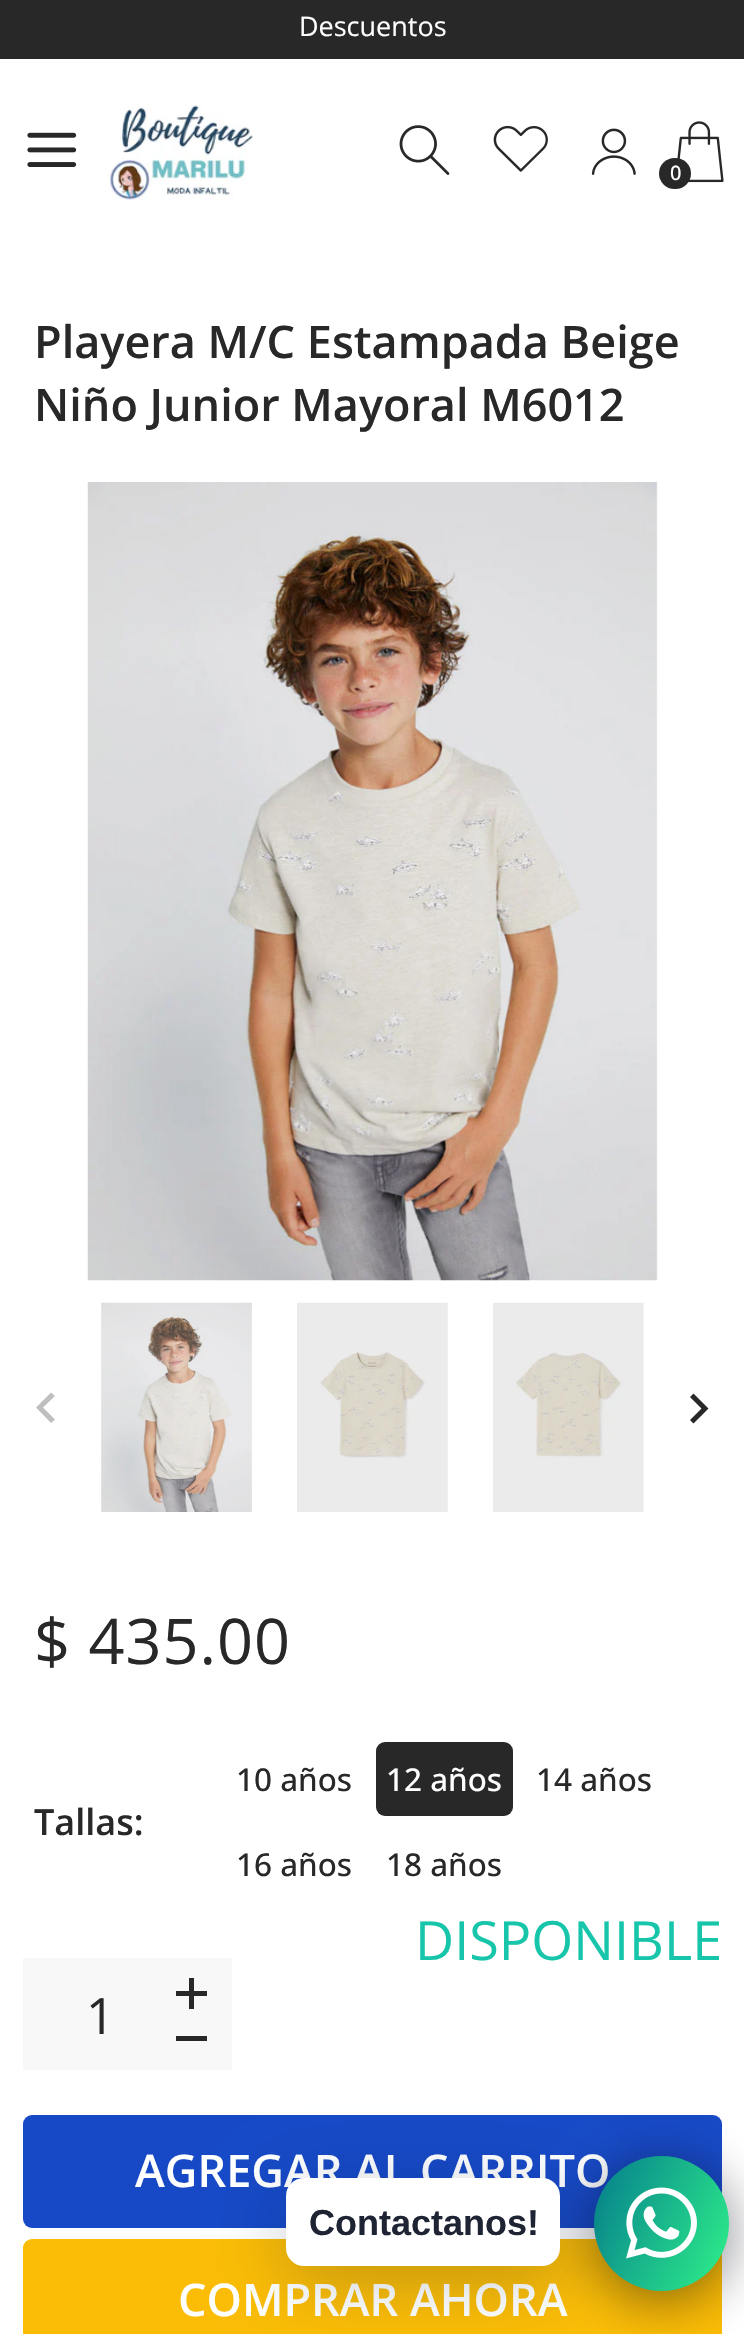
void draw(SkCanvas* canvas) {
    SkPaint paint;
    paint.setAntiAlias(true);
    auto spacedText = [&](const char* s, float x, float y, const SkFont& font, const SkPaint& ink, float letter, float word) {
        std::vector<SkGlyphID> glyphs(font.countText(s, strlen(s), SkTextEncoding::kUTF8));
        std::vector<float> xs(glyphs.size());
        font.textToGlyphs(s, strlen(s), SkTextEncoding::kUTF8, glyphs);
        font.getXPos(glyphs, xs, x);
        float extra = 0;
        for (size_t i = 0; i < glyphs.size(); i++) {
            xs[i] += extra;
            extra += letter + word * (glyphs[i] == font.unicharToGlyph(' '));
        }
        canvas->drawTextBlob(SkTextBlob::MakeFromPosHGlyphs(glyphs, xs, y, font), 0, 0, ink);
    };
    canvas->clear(0xFFFFFFFF);
    paint.setColor(0xFF282828);
    canvas->drawRect(SkRect::MakeXYWH(0, 0, 744, 59), paint);
    SkFont font1(fontMgr->matchFamilyStyle("Open Sans", SkFontStyle::Normal()), 27);
    font1.setSubpixel(true);
    paint.setColor(0xFFFFFFFF);
    canvas->drawString("Descuentos", 299, 36, font1, paint);
    canvas->drawImageRect(SkImages::DeferredFromEncodedData(SkData::MakeFromFileName("img1.png")), SkRect::MakeXYWH(27, 132, 50, 35), SkSamplingOptions());
    canvas->drawImageRect(SkImages::DeferredFromEncodedData(SkData::MakeFromFileName("img2.png")), SkRect::MakeXYWH(108, 105, 146, 95), SkSamplingOptions());
    canvas->drawImageRect(SkImages::DeferredFromEncodedData(SkData::MakeFromFileName("img3.png")), SkRect::MakeXYWH(399, 125, 51, 50), SkSamplingOptions());
    canvas->drawImageRect(SkImages::DeferredFromEncodedData(SkData::MakeFromFileName("img4.png")), SkRect::MakeXYWH(493, 125, 55, 47), SkSamplingOptions());
    canvas->drawImageRect(SkImages::DeferredFromEncodedData(SkData::MakeFromFileName("img5.png")), SkRect::MakeXYWH(591, 128, 45, 47), SkSamplingOptions());
    canvas->drawImageRect(SkImages::DeferredFromEncodedData(SkData::MakeFromFileName("img6.png")), SkRect::MakeXYWH(677, 121, 47, 62), SkSamplingOptions());
    paint.setColor(0xFF282828);
    canvas->drawRoundRect(SkRect::MakeXYWH(659, 158, 32, 31), 15.5f, 15.5f, paint);
    SkFont font2(fontMgr->matchFamilyStyle("Open Sans", SkFontStyle(500, SkFontStyle::kNormal_Width, SkFontStyle::kUpright_Slant)), 20);
    font2.setSubpixel(true);
    paint.setColor(0xFFFFFFFF);
    canvas->drawString("0", 670, 180, font2, paint);
    SkFont font3(fontMgr->matchFamilyStyle("Open Sans", SkFontStyle(600, SkFontStyle::kNormal_Width, SkFontStyle::kUpright_Slant)), 45);
    font3.setSubpixel(true);
    paint.setColor(0xFF282828);
    canvas->drawString("Playera M/C Estampada Beige", 34, 358, font3, paint);
    canvas->drawString("Niño Junior Mayoral M6012", 34, 421, font3, paint);
    canvas->drawImageRect(SkImages::DeferredFromEncodedData(SkData::MakeFromFileName("img7.png")), SkRect::MakeXYWH(87, 482, 571, 799), SkSamplingOptions());
    paint.setColor(0xFFBFBFBF);
    canvas->drawPath(SkPathBuilder().moveTo(55, 1419.5f).lineTo(51, 1423).lineTo(36, 1407.5f).lineTo(51, 1392.5f).lineTo(55, 1396).lineTo(43, 1407.5f).close().detach(), paint);
    canvas->drawImageRect(SkImages::DeferredFromEncodedData(SkData::MakeFromFileName("img8.png")), SkRect::MakeXYWH(101, 1302, 151, 210), SkSamplingOptions());
    canvas->drawImageRect(SkImages::DeferredFromEncodedData(SkData::MakeFromFileName("img9.png")), SkRect::MakeXYWH(297, 1302, 151, 210), SkSamplingOptions());
    canvas->drawImageRect(SkImages::DeferredFromEncodedData(SkData::MakeFromFileName("img10.png")), SkRect::MakeXYWH(493, 1302, 151, 210), SkSamplingOptions());
    paint.setColor(0xFF282828);
    canvas->drawPath(SkPathBuilder().moveTo(690, 1420).lineTo(701.5f, 1408.5f).lineTo(690, 1397).lineTo(693.5f, 1393.5f).lineTo(708.5f, 1408.5f).lineTo(693.5f, 1423.5f).close().detach(), paint);
    SkFont font4(fontMgr->matchFamilyStyle("Open Sans", SkFontStyle::Normal()), 63);
    font4.setSubpixel(true);
    spacedText("$ 435.00", 34, 1664, font4, paint, 1, 0);
    SkFont font5(fontMgr->matchFamilyStyle("Open Sans", SkFontStyle(600, SkFontStyle::kNormal_Width, SkFontStyle::kUpright_Slant)), 36);
    font5.setSubpixel(true);
    canvas->drawString("Tallas:", 34, 1835, font5, paint);
    SkFont font6(fontMgr->matchFamilyStyle("Open Sans", SkFontStyle(500, SkFontStyle::kNormal_Width, SkFontStyle::kUpright_Slant)), 31.5f);
    font6.setSubpixel(true);
    canvas->drawString("10 años", 236, 1791, font6, paint);
    canvas->drawRoundRect(SkRect::MakeXYWH(376, 1742, 137, 74), 9, 9, paint);
    paint.setColor(0xFFFFFFFF);
    canvas->drawString("12 años", 386, 1791, font6, paint);
    paint.setColor(0xFF282828);
    canvas->drawString("14 años", 536, 1791, font6, paint);
    canvas->drawString("16 años", 236, 1876, font6, paint);
    canvas->drawString("18 años", 386, 1876, font6, paint);
    SkFont font7(fontMgr->matchFamilyStyle("Open Sans", SkFontStyle::Normal()), 54);
    font7.setSubpixel(true);
    paint.setColor(0xFF17C6AA);
    canvas->drawString("DISPONIBLE", 415, 1960, font7, paint);
    paint.setColor(0xFFF8F8F8);
    canvas->drawRect(SkRect::MakeXYWH(23, 1958, 209, 112), paint);
    paint.setColor(0xFF282828);
    canvas->drawRect(SkRect::MakeXYWH(176, 1991, 31, 5), paint);
    canvas->drawRect(SkRect::MakeXYWH(189, 1978, 5, 31), paint);
    SkFont font8(fontMgr->matchFamilyStyle("Open Sans", SkFontStyle::Normal()), 50);
    font8.setSubpixel(true);
    canvas->drawString("1", 86, 2034, font8, paint);
    canvas->drawRect(SkRect::MakeXYWH(176, 2036, 31, 5), paint);
    paint.setColor(0xFF1749C6);
    canvas->drawRoundRect(SkRect::MakeXYWH(23, 2115, 699, 113), 9, 9, paint);
    paint.setColor(0xFFFFFFFF);
    canvas->drawString("AGREGAR AL CARRITO", 135, 2187, font3, paint);
    paint.setColor(0xFFFBBC05);
    canvas->drawRoundRect(SkRect::MakeXYWH(23, 2239, 699, 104), 9, 9, paint);
    paint.setColor(0xFFFFFFFF);
    canvas->drawString("COMPRAR AHORA", 178, 2316, font3, paint);
    paint.setColor(0x80020610);
    paint.setMaskFilter(SkMaskFilter::MakeBlur(kNormal_SkBlurStyle, 27));
    canvas->drawRoundRect(SkRect::MakeXYWH(594, 2165, 135, 135), 67.5f, 67.5f, paint);
    paint.setMaskFilter(nullptr);
    {
        const SkColor colors[] = {0xFF047C8D, 0xFF2FF289};
        const float stops[] = {0, 1};
        const SkPoint ends[] = {{580, 2185}, {743, 2261}};
        paint.setShader(SkGradientShader::MakeLinear(ends, colors, stops, 2, SkTileMode::kClamp));
        paint.setAlpha(255);
    }
    canvas->drawCircle(661.5f, 2223.5f, 67.5f, paint);
    paint.setShader(nullptr);
    paint.setColor(0x3D00122E);
    paint.setMaskFilter(SkMaskFilter::MakeBlur(kNormal_SkBlurStyle, 36));
    canvas->drawRoundRect(SkRect::MakeXYWH(286, 2192, 274, 87), 18, 18, paint);
    paint.setMaskFilter(nullptr);
    paint.setColor(0xFFFFFFFF);
    canvas->drawRoundRect(SkRect::MakeXYWH(286, 2178, 274, 88), 18, 18, paint);
    SkFont font9(fontMgr->matchFamilyStyle("Liberation Sans", SkFontStyle::Bold()), 36);
    font9.setSubpixel(true);
    paint.setColor(0xFF1E2433);
    canvas->drawString("Contactanos!", 309, 2235, font9, paint);
    canvas->drawImageRect(SkImages::DeferredFromEncodedData(SkData::MakeFromFileName("img11.png")), SkRect::MakeXYWH(626, 2187, 71, 72), SkSamplingOptions());
}
